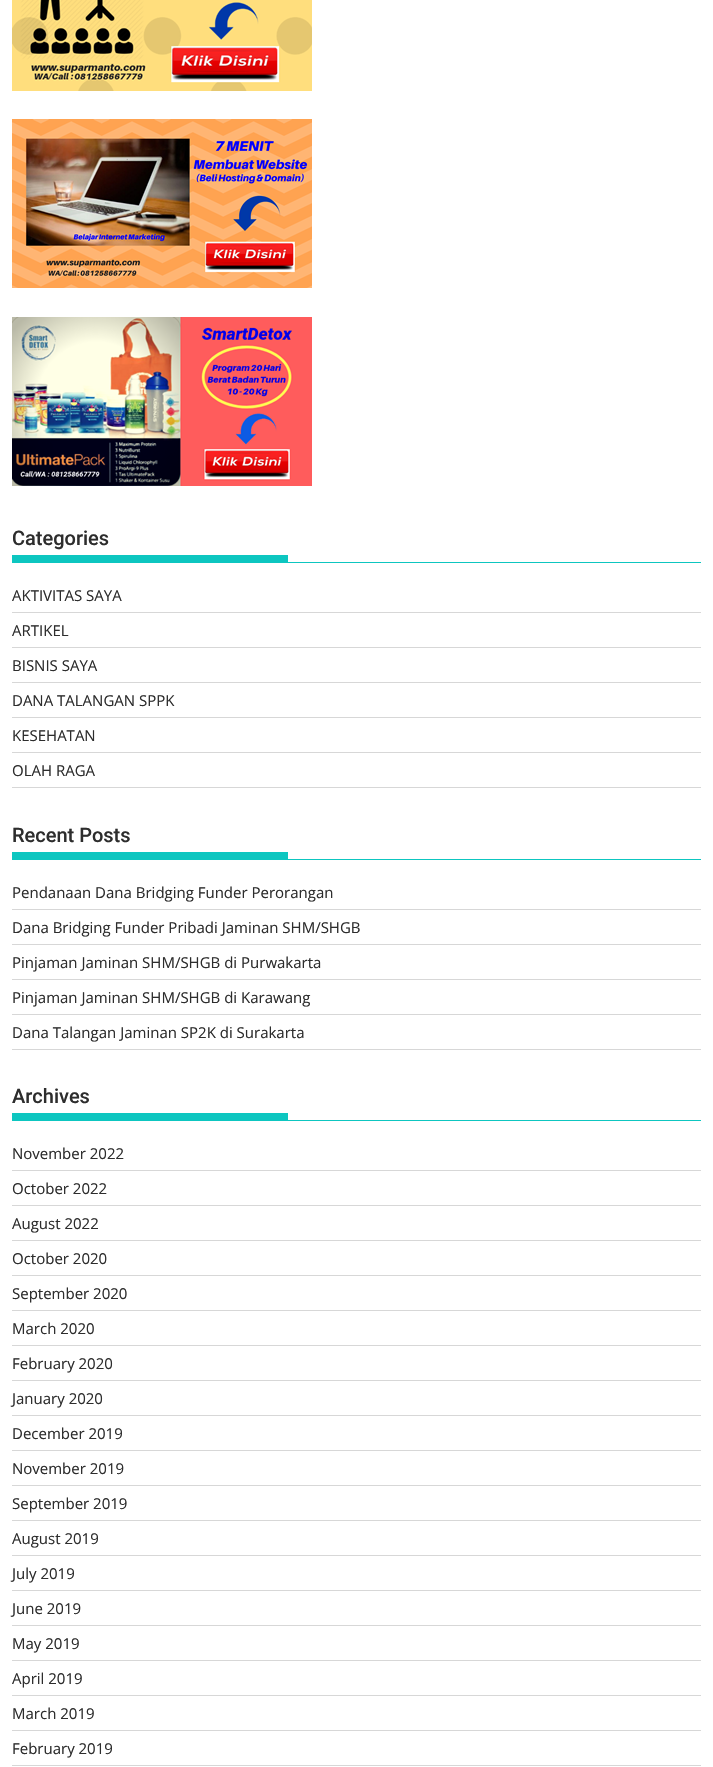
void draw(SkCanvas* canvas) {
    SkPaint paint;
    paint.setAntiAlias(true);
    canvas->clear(0xFFFFFFFF);
    canvas->drawImageRect(SkImages::DeferredFromEncodedData(SkData::MakeFromFileName("img1.png")), SkRect::MakeXYWH(12, 0, 300, 91), SkSamplingOptions());
    canvas->drawImageRect(SkImages::DeferredFromEncodedData(SkData::MakeFromFileName("img2.png")), SkRect::MakeXYWH(12, 119, 300, 169), SkSamplingOptions());
    canvas->drawImageRect(SkImages::DeferredFromEncodedData(SkData::MakeFromFileName("img3.png")), SkRect::MakeXYWH(12, 317, 300, 169), SkSamplingOptions());
    paint.setColor(0xFF0DC6C0);
    canvas->drawRect(SkRect::MakeXYWH(12, 562, 689, 1), paint);
    SkFont font1(fontMgr->matchFamilyStyle("Roboto", SkFontStyle(500, SkFontStyle::kNormal_Width, SkFontStyle::kUpright_Slant)), 20);
    font1.setSubpixel(true);
    paint.setColor(0xFF2D2D2D);
    canvas->drawString("Categories", 12, 545, font1, paint);
    paint.setColor(0xFF0DC6C0);
    canvas->drawRect(SkRect::MakeXYWH(12, 555, 276, 7), paint);
    paint.setColor(0xFFD7D7D7);
    canvas->drawRect(SkRect::MakeXYWH(12, 612, 689, 1), paint);
    SkFont font2(fontMgr->matchFamilyStyle("Open Sans", SkFontStyle::Normal()), 15);
    font2.setSubpixel(true);
    paint.setColor(0xFF2D2D2D);
    canvas->drawString("AKTIVITAS SAYA", 12, 601, font2, paint);
    paint.setColor(0xFFD7D7D7);
    canvas->drawRect(SkRect::MakeXYWH(12, 647, 689, 1), paint);
    paint.setColor(0xFF2D2D2D);
    canvas->drawString("ARTIKEL", 12, 636, font2, paint);
    paint.setColor(0xFFD7D7D7);
    canvas->drawRect(SkRect::MakeXYWH(12, 682, 689, 1), paint);
    paint.setColor(0xFF2D2D2D);
    canvas->drawString("BISNIS SAYA", 12, 671, font2, paint);
    paint.setColor(0xFFD7D7D7);
    canvas->drawRect(SkRect::MakeXYWH(12, 717, 689, 1), paint);
    paint.setColor(0xFF2D2D2D);
    canvas->drawString("DANA TALANGAN SPPK", 12, 706, font2, paint);
    paint.setColor(0xFFD7D7D7);
    canvas->drawRect(SkRect::MakeXYWH(12, 752, 689, 1), paint);
    paint.setColor(0xFF2D2D2D);
    canvas->drawString("KESEHATAN", 12, 741, font2, paint);
    paint.setColor(0xFFD7D7D7);
    canvas->drawRect(SkRect::MakeXYWH(12, 787, 689, 1), paint);
    paint.setColor(0xFF2D2D2D);
    canvas->drawString("OLAH RAGA", 12, 776, font2, paint);
    paint.setColor(0xFF0DC6C0);
    canvas->drawRect(SkRect::MakeXYWH(12, 859, 689, 1), paint);
    paint.setColor(0xFF2D2D2D);
    canvas->drawString("Recent Posts", 12, 842, font1, paint);
    paint.setColor(0xFF0DC6C0);
    canvas->drawRect(SkRect::MakeXYWH(12, 852, 276, 7), paint);
    paint.setColor(0xFFD7D7D7);
    canvas->drawRect(SkRect::MakeXYWH(12, 909, 689, 1), paint);
    paint.setColor(0xFF2D2D2D);
    canvas->drawString("Pendanaan Dana Bridging Funder Perorangan", 12, 898, font2, paint);
    paint.setColor(0xFFD7D7D7);
    canvas->drawRect(SkRect::MakeXYWH(12, 944, 689, 1), paint);
    paint.setColor(0xFF2D2D2D);
    canvas->drawString("Dana Bridging Funder Pribadi Jaminan SHM/SHGB", 12, 933, font2, paint);
    paint.setColor(0xFFD7D7D7);
    canvas->drawRect(SkRect::MakeXYWH(12, 979, 689, 1), paint);
    paint.setColor(0xFF2D2D2D);
    canvas->drawString("Pinjaman Jaminan SHM/SHGB di Purwakarta", 12, 968, font2, paint);
    paint.setColor(0xFFD7D7D7);
    canvas->drawRect(SkRect::MakeXYWH(12, 1014, 689, 1), paint);
    paint.setColor(0xFF2D2D2D);
    canvas->drawString("Pinjaman Jaminan SHM/SHGB di Karawang", 12, 1003, font2, paint);
    paint.setColor(0xFFD7D7D7);
    canvas->drawRect(SkRect::MakeXYWH(12, 1049, 689, 1), paint);
    paint.setColor(0xFF2D2D2D);
    canvas->drawString("Dana Talangan Jaminan SP2K di Surakarta", 12, 1038, font2, paint);
    paint.setColor(0xFF0DC6C0);
    canvas->drawRect(SkRect::MakeXYWH(12, 1120, 689, 1), paint);
    paint.setColor(0xFF2D2D2D);
    canvas->drawString("Archives", 12, 1103, font1, paint);
    paint.setColor(0xFF0DC6C0);
    canvas->drawRect(SkRect::MakeXYWH(12, 1113, 276, 7), paint);
    paint.setColor(0xFFD7D7D7);
    canvas->drawRect(SkRect::MakeXYWH(12, 1170, 689, 1), paint);
    paint.setColor(0xFF2D2D2D);
    canvas->drawString("November 2022", 12, 1159, font2, paint);
    paint.setColor(0xFFD7D7D7);
    canvas->drawRect(SkRect::MakeXYWH(12, 1205, 689, 1), paint);
    paint.setColor(0xFF2D2D2D);
    canvas->drawString("October 2022", 12, 1194, font2, paint);
    paint.setColor(0xFFD7D7D7);
    canvas->drawRect(SkRect::MakeXYWH(12, 1240, 689, 1), paint);
    paint.setColor(0xFF2D2D2D);
    canvas->drawString("August 2022", 12, 1229, font2, paint);
    paint.setColor(0xFFD7D7D7);
    canvas->drawRect(SkRect::MakeXYWH(12, 1275, 689, 1), paint);
    paint.setColor(0xFF2D2D2D);
    canvas->drawString("October 2020", 12, 1264, font2, paint);
    paint.setColor(0xFFD7D7D7);
    canvas->drawRect(SkRect::MakeXYWH(12, 1310, 689, 1), paint);
    paint.setColor(0xFF2D2D2D);
    canvas->drawString("September 2020", 12, 1299, font2, paint);
    paint.setColor(0xFFD7D7D7);
    canvas->drawRect(SkRect::MakeXYWH(12, 1345, 689, 1), paint);
    paint.setColor(0xFF2D2D2D);
    canvas->drawString("March 2020", 12, 1334, font2, paint);
    paint.setColor(0xFFD7D7D7);
    canvas->drawRect(SkRect::MakeXYWH(12, 1380, 689, 1), paint);
    paint.setColor(0xFF2D2D2D);
    canvas->drawString("February 2020", 12, 1369, font2, paint);
    paint.setColor(0xFFD7D7D7);
    canvas->drawRect(SkRect::MakeXYWH(12, 1415, 689, 1), paint);
    paint.setColor(0xFF2D2D2D);
    canvas->drawString("January 2020", 12, 1404, font2, paint);
    paint.setColor(0xFFD7D7D7);
    canvas->drawRect(SkRect::MakeXYWH(12, 1450, 689, 1), paint);
    paint.setColor(0xFF2D2D2D);
    canvas->drawString("December 2019", 12, 1439, font2, paint);
    paint.setColor(0xFFD7D7D7);
    canvas->drawRect(SkRect::MakeXYWH(12, 1485, 689, 1), paint);
    paint.setColor(0xFF2D2D2D);
    canvas->drawString("November 2019", 12, 1474, font2, paint);
    paint.setColor(0xFFD7D7D7);
    canvas->drawRect(SkRect::MakeXYWH(12, 1520, 689, 1), paint);
    paint.setColor(0xFF2D2D2D);
    canvas->drawString("September 2019", 12, 1509, font2, paint);
    paint.setColor(0xFFD7D7D7);
    canvas->drawRect(SkRect::MakeXYWH(12, 1555, 689, 1), paint);
    paint.setColor(0xFF2D2D2D);
    canvas->drawString("August 2019", 12, 1544, font2, paint);
    paint.setColor(0xFFD7D7D7);
    canvas->drawRect(SkRect::MakeXYWH(12, 1590, 689, 1), paint);
    paint.setColor(0xFF2D2D2D);
    canvas->drawString("July 2019", 12, 1579, font2, paint);
    paint.setColor(0xFFD7D7D7);
    canvas->drawRect(SkRect::MakeXYWH(12, 1625, 689, 1), paint);
    paint.setColor(0xFF2D2D2D);
    canvas->drawString("June 2019", 12, 1614, font2, paint);
    paint.setColor(0xFFD7D7D7);
    canvas->drawRect(SkRect::MakeXYWH(12, 1660, 689, 1), paint);
    paint.setColor(0xFF2D2D2D);
    canvas->drawString("May 2019", 12, 1649, font2, paint);
    paint.setColor(0xFFD7D7D7);
    canvas->drawRect(SkRect::MakeXYWH(12, 1695, 689, 1), paint);
    paint.setColor(0xFF2D2D2D);
    canvas->drawString("April 2019", 12, 1684, font2, paint);
    paint.setColor(0xFFD7D7D7);
    canvas->drawRect(SkRect::MakeXYWH(12, 1730, 689, 1), paint);
    paint.setColor(0xFF2D2D2D);
    canvas->drawString("March 2019", 12, 1719, font2, paint);
    paint.setColor(0xFFD7D7D7);
    canvas->drawRect(SkRect::MakeXYWH(12, 1765, 689, 1), paint);
    paint.setColor(0xFF2D2D2D);
    canvas->drawString("February 2019", 12, 1754, font2, paint);
}
